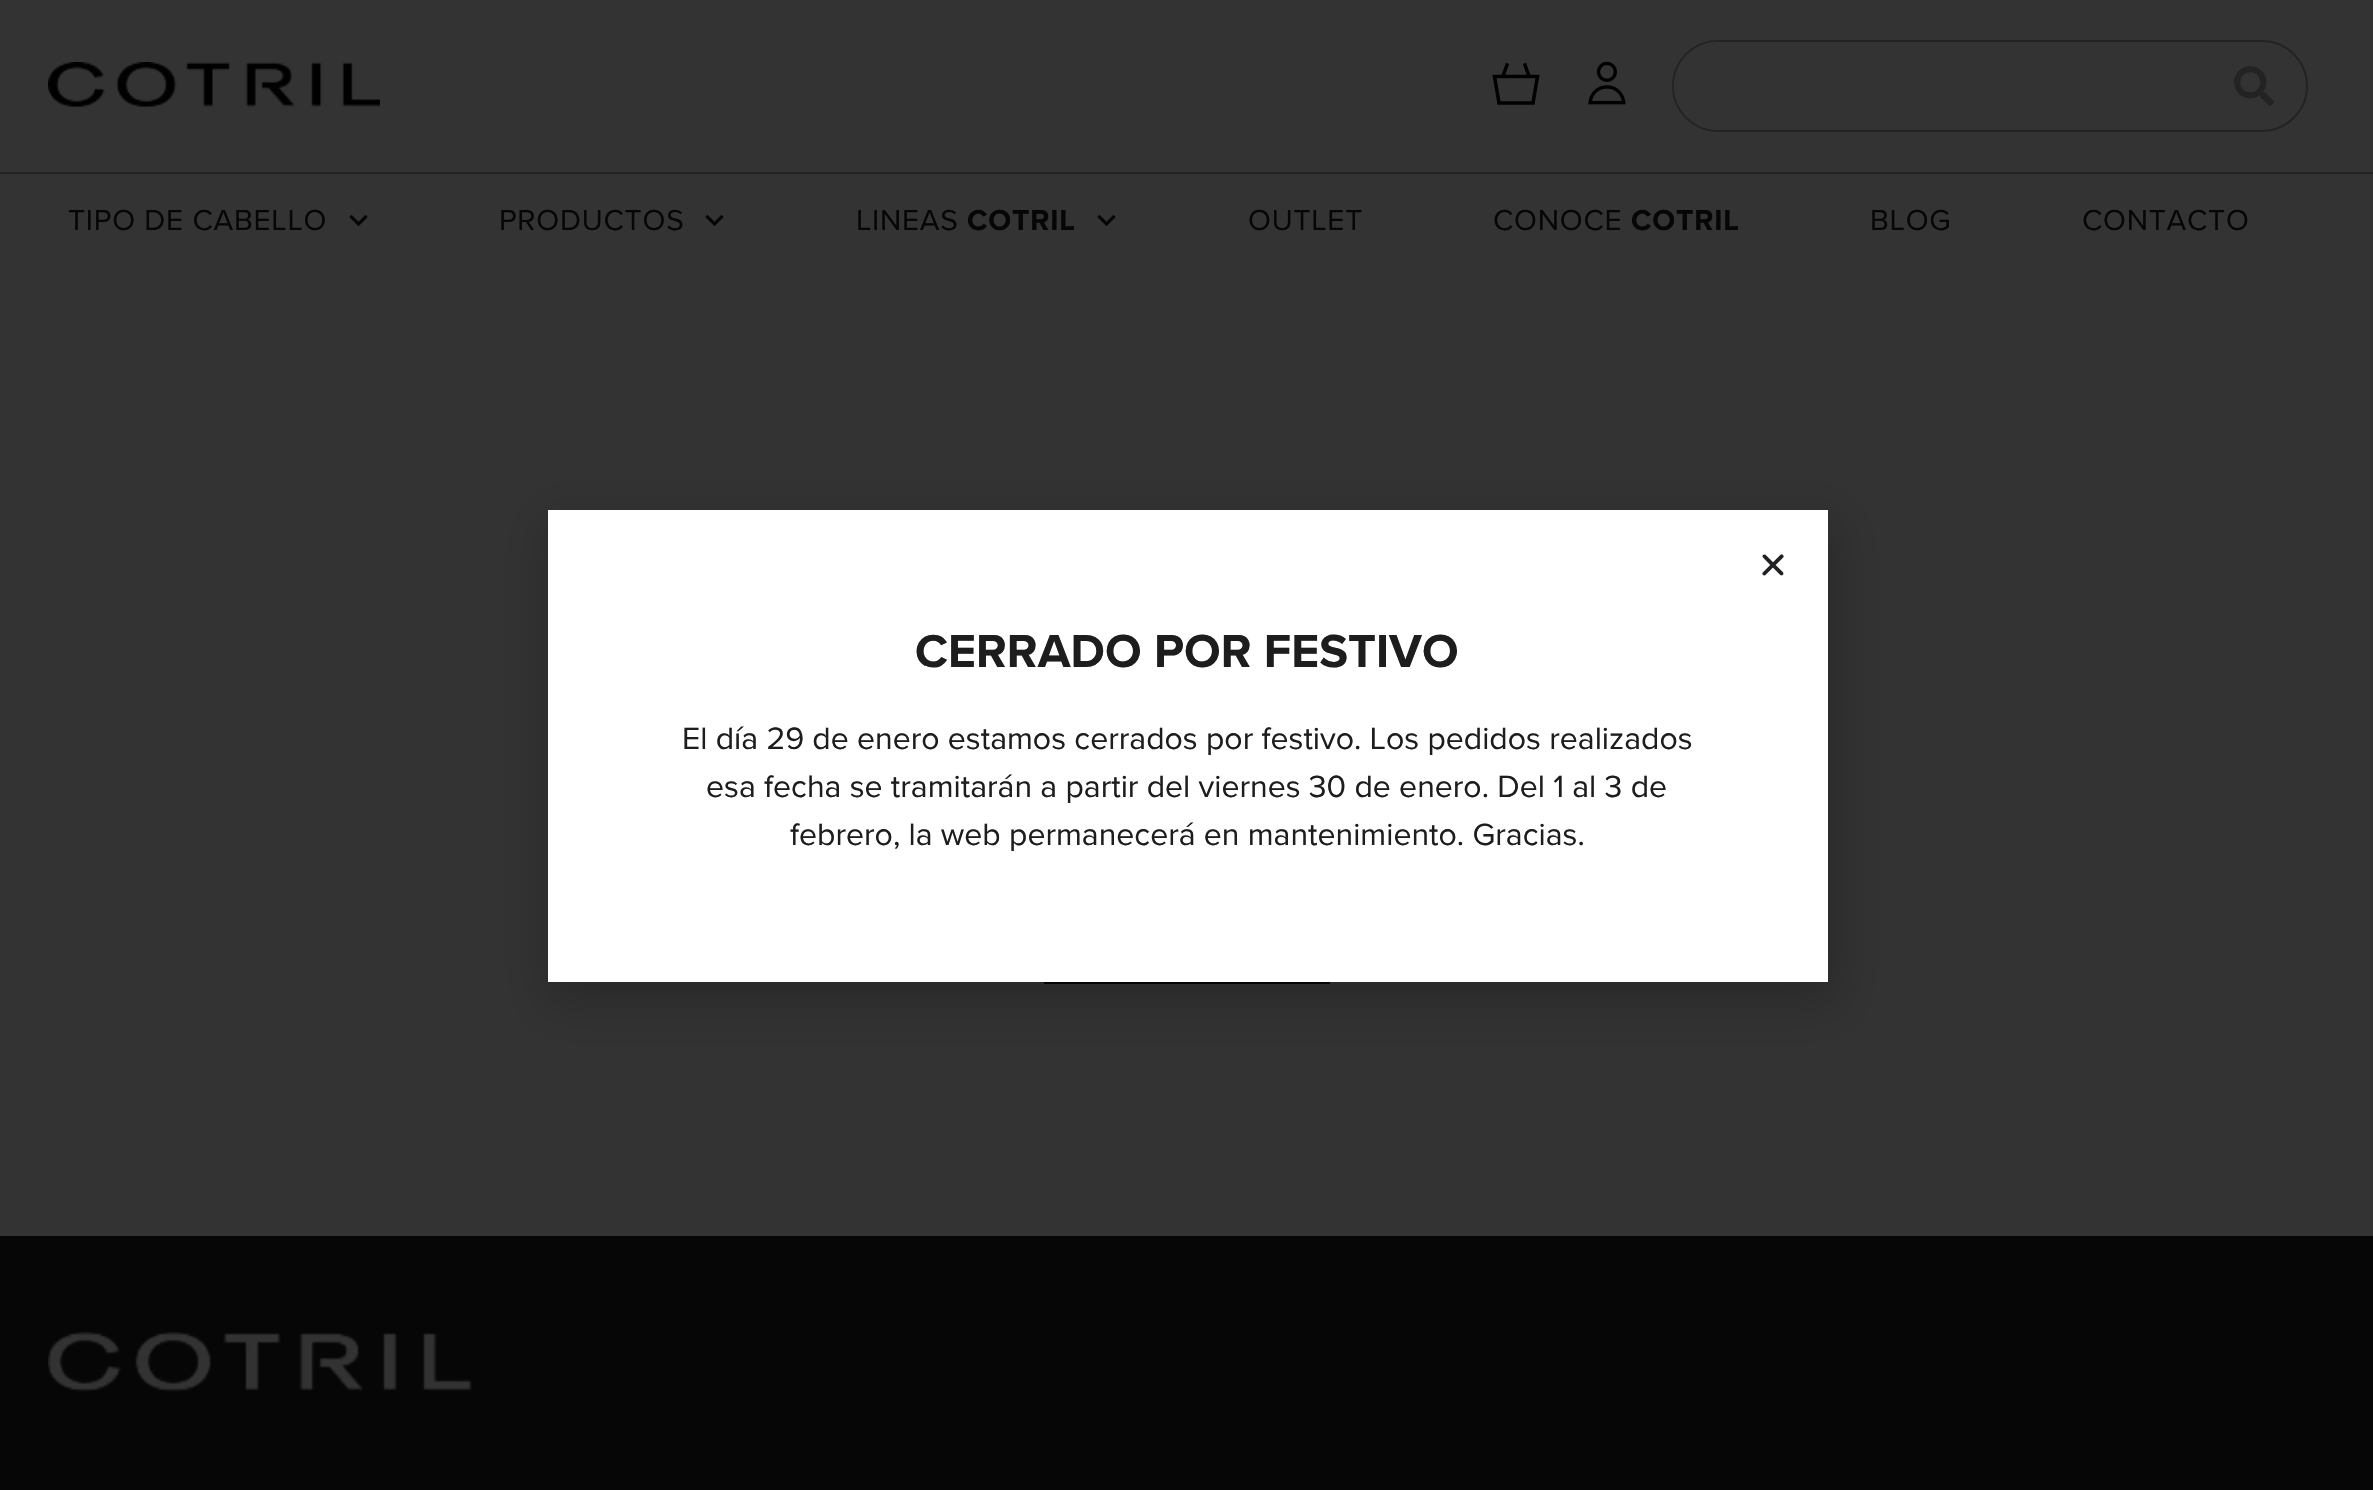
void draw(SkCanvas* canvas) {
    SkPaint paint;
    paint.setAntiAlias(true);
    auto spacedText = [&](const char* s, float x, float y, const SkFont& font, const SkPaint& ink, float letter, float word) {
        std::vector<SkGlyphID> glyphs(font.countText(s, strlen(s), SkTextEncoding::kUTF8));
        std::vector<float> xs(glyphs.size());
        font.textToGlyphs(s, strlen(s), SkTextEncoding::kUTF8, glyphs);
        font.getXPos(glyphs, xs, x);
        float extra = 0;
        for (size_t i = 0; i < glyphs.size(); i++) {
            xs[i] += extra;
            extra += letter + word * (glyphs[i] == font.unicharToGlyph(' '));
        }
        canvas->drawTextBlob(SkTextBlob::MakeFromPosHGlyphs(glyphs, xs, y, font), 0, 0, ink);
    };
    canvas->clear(0xFF333333);
    paint.setColor(0xFF232323);
    canvas->drawRect(SkRect::MakeXYWH(0, 172, 2373, 2), paint);
    canvas->drawImageRect(SkImages::DeferredFromEncodedData(SkData::MakeFromFileName("img1.png")), SkRect::MakeXYWH(48, 62, 332, 47), SkSamplingOptions());
    paint.setStyle(SkPaint::kStroke_Style);
    paint.setStrokeWidth(3.5f);
    paint.setStrokeCap(SkPaint::kSquare_Cap);
    paint.setColor(0xFF000000);
    canvas->drawPath(SkPathBuilder().moveTo(1507, 65).lineTo(1503, 76).moveTo(1525, 65).lineTo(1529, 76).moveTo(1537.5f, 76.5f).lineTo(1533, 103).lineTo(1499, 103).lineTo(1494.5f, 76.5f).close().detach(), paint);
    canvas->drawImageRect(SkImages::DeferredFromEncodedData(SkData::MakeFromFileName("img2.png")), SkRect::MakeXYWH(1588, 61, 38, 44), SkSamplingOptions());
    paint.setStrokeWidth(2);
    paint.setStrokeCap(SkPaint::kButt_Cap);
    paint.setColor(0xFF232323);
    canvas->drawRoundRect(SkRect::MakeXYWH(1673, 41, 634, 90), 45, 45, paint);
    paint.setStyle(SkPaint::kFill_Style);
    paint.setColor(0xFF333333);
    canvas->drawRoundRect(SkRect::MakeXYWH(1674, 42, 528, 88), 44, 44, paint);
    canvas->drawImageRect(SkImages::DeferredFromEncodedData(SkData::MakeFromFileName("img3.png")), SkRect::MakeXYWH(2234, 66, 40, 40), SkSamplingOptions());
    SkFont font1(fontMgr->matchFamilyStyle("Proxima Nova", SkFontStyle::Normal()), 30);
    font1.setSubpixel(true);
    paint.setColor(0xFF060606);
    spacedText("TIPO DE CABELLO", 68, 230, font1, paint, 0.75f, 0);
    canvas->drawImageRect(SkImages::DeferredFromEncodedData(SkData::MakeFromFileName("img4.png")), SkRect::MakeXYWH(349, 215, 19, 11), SkSamplingOptions());
    spacedText("PRODUCTOS", 499, 230, font1, paint, 0.75f, 0);
    canvas->drawImageRect(SkImages::DeferredFromEncodedData(SkData::MakeFromFileName("img4.png")), SkRect::MakeXYWH(705, 215, 19, 11), SkSamplingOptions());
    spacedText("LINEAS", 856, 230, font1, paint, 0.75f, 0);
    SkFont font2(fontMgr->matchFamilyStyle("Proxima Nova", SkFontStyle::Bold()), 30);
    font2.setSubpixel(true);
    spacedText("COTRIL", 967, 230, font2, paint, 0.75f, 0);
    canvas->drawImageRect(SkImages::DeferredFromEncodedData(SkData::MakeFromFileName("img4.png")), SkRect::MakeXYWH(1097, 215, 19, 11), SkSamplingOptions());
    spacedText("OUTLET", 1248, 230, font1, paint, 0.75f, 0);
    spacedText("CONOCE", 1493, 230, font1, paint, 0.75f, 0);
    spacedText("COTRIL", 1631, 230, font2, paint, 0.75f, 0);
    spacedText("BLOG", 1870, 230, font1, paint, 0.75f, 0);
    spacedText("CONTACTO", 2082, 230, font1, paint, 0.75f, 0);
    canvas->drawRect(SkRect::MakeXYWH(1044, 982, 286, 2), paint);
    paint.setColor(0x33000000);
    paint.setMaskFilter(SkMaskFilter::MakeBlur(kNormal_SkBlurStyle, 23));
    canvas->drawRect(SkRect::MakeXYWH(546, 520, 1292, 484), paint);
    paint.setMaskFilter(nullptr);
    paint.setColor(0xFFFFFFFF);
    canvas->drawRect(SkRect::MakeXYWH(548, 510, 1280, 472), paint);
    canvas->drawImageRect(SkImages::DeferredFromEncodedData(SkData::MakeFromFileName("img5.png")), SkRect::MakeXYWH(1762, 554, 22, 22), SkSamplingOptions());
    SkFont font3(fontMgr->matchFamilyStyle("Proxima Nova", SkFontStyle::Bold()), 48);
    font3.setSubpixel(true);
    paint.setColor(0xFF1D1D1D);
    canvas->drawString("CERRADO POR FESTIVO", 915, 667, font3, paint);
    SkFont font4(fontMgr->matchFamilyStyle("Proxima Nova", SkFontStyle::Normal()), 32);
    font4.setSubpixel(true);
    canvas->drawString("El día 29 de enero estamos cerrados por festivo. Los pedidos realizados", 682, 749, font4, paint);
    canvas->drawString("esa fecha se tramitarán a partir del viernes 30 de enero. Del 1 al 3 de", 706, 797, font4, paint);
    canvas->drawString("febrero, la web permanecerá en mantenimiento. Gracias.", 790, 845, font4, paint);
    paint.setColor(0xFF060606);
    canvas->drawRect(SkRect::MakeXYWH(0, 1236, 2373, 254), paint);
    canvas->drawImageRect(SkImages::DeferredFromEncodedData(SkData::MakeFromFileName("img6.png")), SkRect::MakeXYWH(48, 1332, 424, 60), SkSamplingOptions());
}
